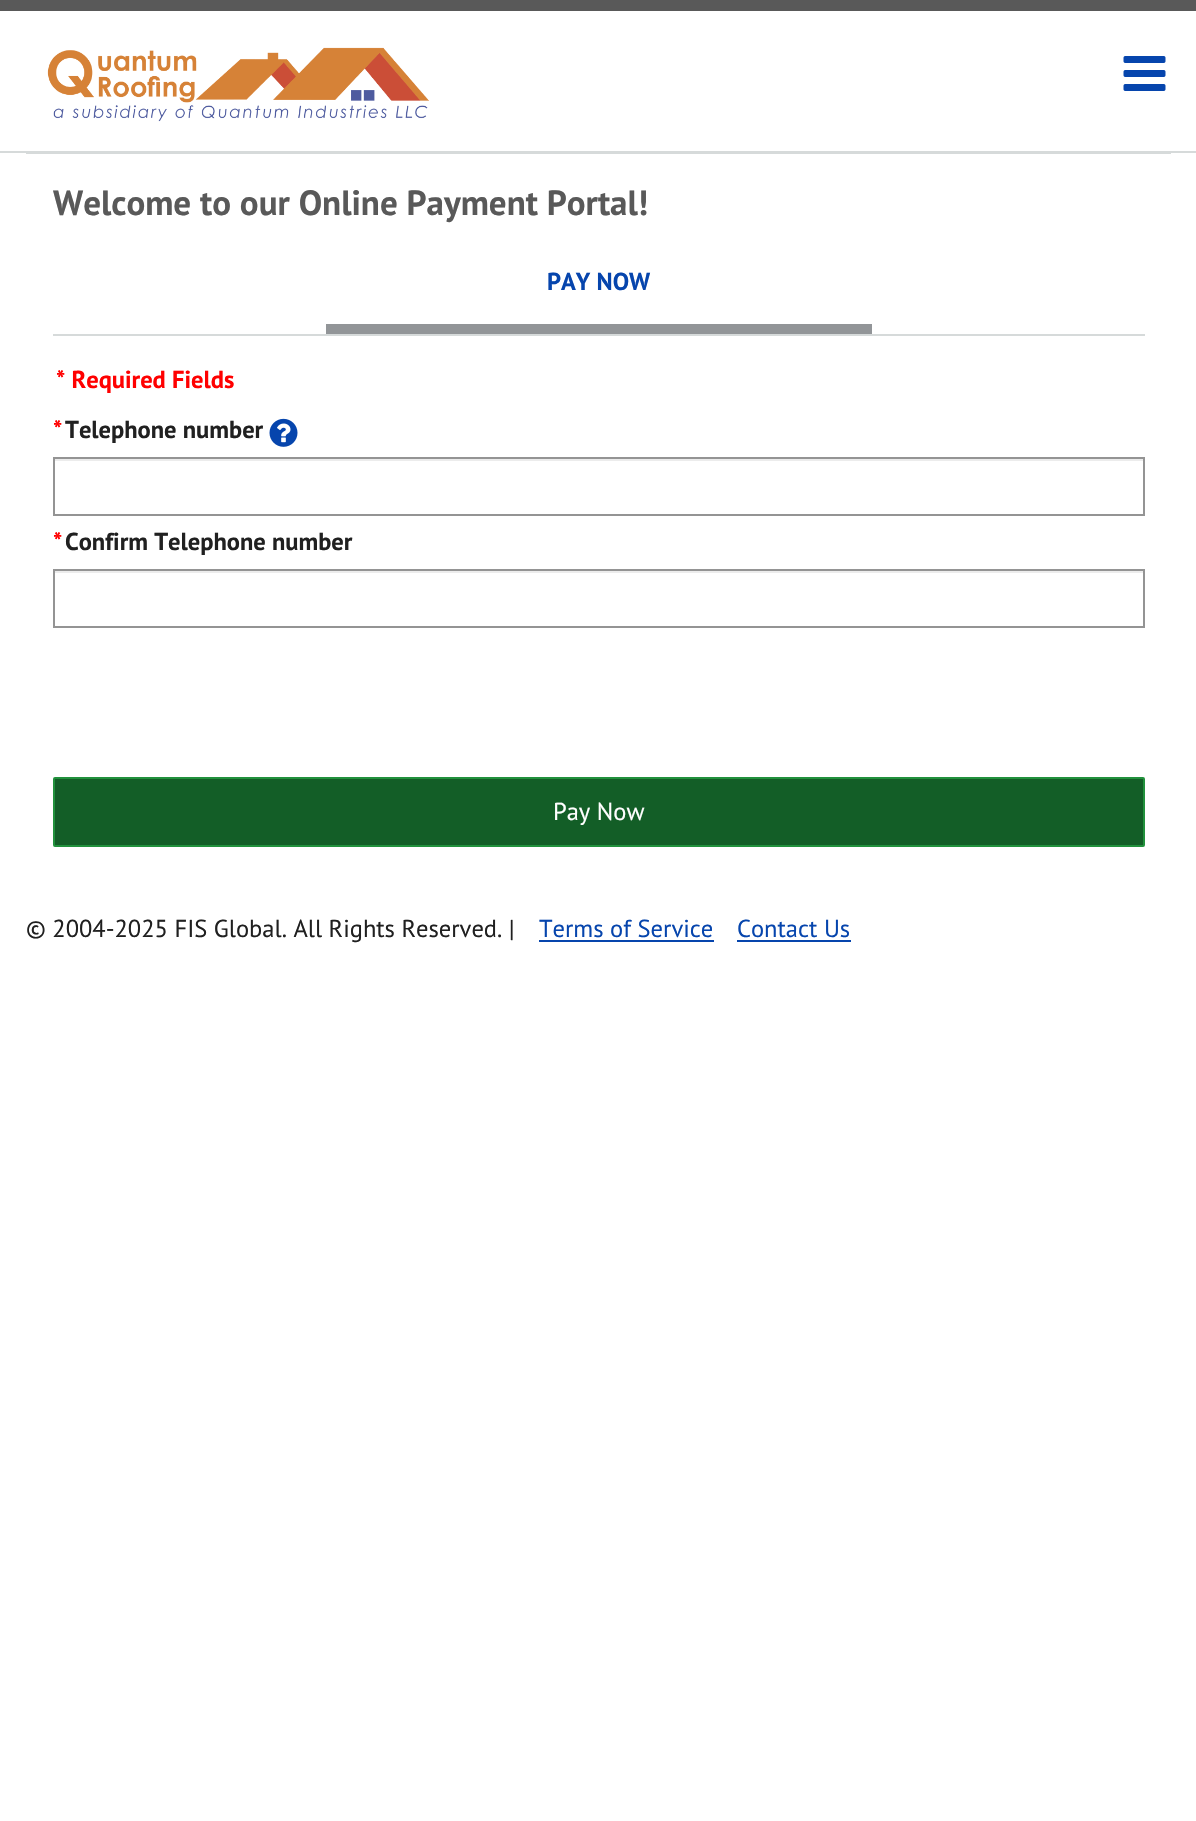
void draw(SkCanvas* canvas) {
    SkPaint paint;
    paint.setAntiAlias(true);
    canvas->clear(0xFFFFFFFF);
    paint.setColor(0xFF595959);
    canvas->drawRect(SkRect::MakeXYWH(0, 0, 1196, 11), paint);
    canvas->drawImageRect(SkImages::DeferredFromEncodedData(SkData::MakeFromFileName("img1.png")), SkRect::MakeXYWH(47, 47, 382, 75), SkSamplingOptions());
    canvas->drawImageRect(SkImages::DeferredFromEncodedData(SkData::MakeFromFileName("img2.png")), SkRect::MakeXYWH(1123, 56, 43, 35), SkSamplingOptions());
    paint.setColor(0xFFD6DADA);
    canvas->drawRect(SkRect::MakeXYWH(0, 151, 1196, 2), paint);
    canvas->drawRect(SkRect::MakeXYWH(26, 153, 1145, 1), paint);
    SkFont font1(fontMgr->matchFamilyStyle("PT Sans", SkFontStyle::Bold()), 35);
    font1.setSubpixel(true);
    paint.setColor(0xFF595959);
    canvas->drawString("Welcome to our Online Payment Portal!", 53, 215, font1, paint);
    paint.setColor(0xFFD6DADA);
    canvas->drawRect(SkRect::MakeXYWH(53, 334, 1092, 2), paint);
    paint.setColor(0xFF929598);
    canvas->drawRect(SkRect::MakeXYWH(326, 324, 546, 10), paint);
    SkFont font2(fontMgr->matchFamilyStyle("PT Sans", SkFontStyle::Bold()), 24.5f);
    font2.setSubpixel(true);
    paint.setColor(0xFF0645AD);
    canvas->drawString("PAY NOW", 547, 290, font2, paint);
    paint.setColor(0xFFFF0000);
    canvas->drawString("* Required Fields", 56, 388, font2, paint);
    canvas->drawString("*", 53, 438, font2, paint);
    paint.setColor(0xFF202020);
    canvas->drawString("Telephone number", 65, 438, font2, paint);
    canvas->drawImageRect(SkImages::DeferredFromEncodedData(SkData::MakeFromFileName("img3.png")), SkRect::MakeXYWH(269, 418, 29, 29), SkSamplingOptions());
    paint.setColor(0xFFECECEC);
    canvas->drawRect(SkRect::MakeXYWH(54, 459, 1089, 2), paint);
    paint.setStyle(SkPaint::kStroke_Style);
    paint.setStrokeWidth(2);
    paint.setColor(0xFF949494);
    canvas->drawRect(SkRect::MakeXYWH(54, 458, 1090, 57), paint);
    paint.setStyle(SkPaint::kFill_Style);
    paint.setColor(0xFFFF0000);
    canvas->drawString("*", 53, 550, font2, paint);
    paint.setColor(0xFF202020);
    canvas->drawString("Confirm Telephone number", 65, 550, font2, paint);
    paint.setColor(0xFFECECEC);
    canvas->drawRect(SkRect::MakeXYWH(54, 571, 1089, 2), paint);
    paint.setStyle(SkPaint::kStroke_Style);
    paint.setColor(0xFF949494);
    canvas->drawRect(SkRect::MakeXYWH(54, 570, 1090, 57), paint);
    paint.setStyle(SkPaint::kFill_Style);
    paint.setColor(0xFF135E27);
    canvas->drawRoundRect(SkRect::MakeXYWH(54, 778, 1090, 68), 1, 1, paint);
    paint.setStyle(SkPaint::kStroke_Style);
    paint.setColor(0xFF21913C);
    canvas->drawRoundRect(SkRect::MakeXYWH(54, 778, 1090, 68), 1, 1, paint);
    SkFont font3(fontMgr->matchFamilyStyle("PT Sans", SkFontStyle::Normal()), 24.5f);
    font3.setSubpixel(true);
    paint.setStyle(SkPaint::kFill_Style);
    paint.setColor(0xFFFFFFFF);
    canvas->drawString("Pay Now", 553, 820, font3, paint);
    paint.setColor(0xFF202020);
    canvas->drawString("© 2004-2025 FIS Global. All Rights Reserved. |", 26, 937, font3, paint);
    paint.setColor(0xFF0645AD);
    canvas->drawString("Terms of Service", 539, 937, font3, paint);
    canvas->drawRect(SkRect::MakeXYWH(539, 940, 175, 2), paint);
    canvas->drawString("Contact Us", 737, 937, font3, paint);
    canvas->drawRect(SkRect::MakeXYWH(737, 940, 114, 2), paint);
}
